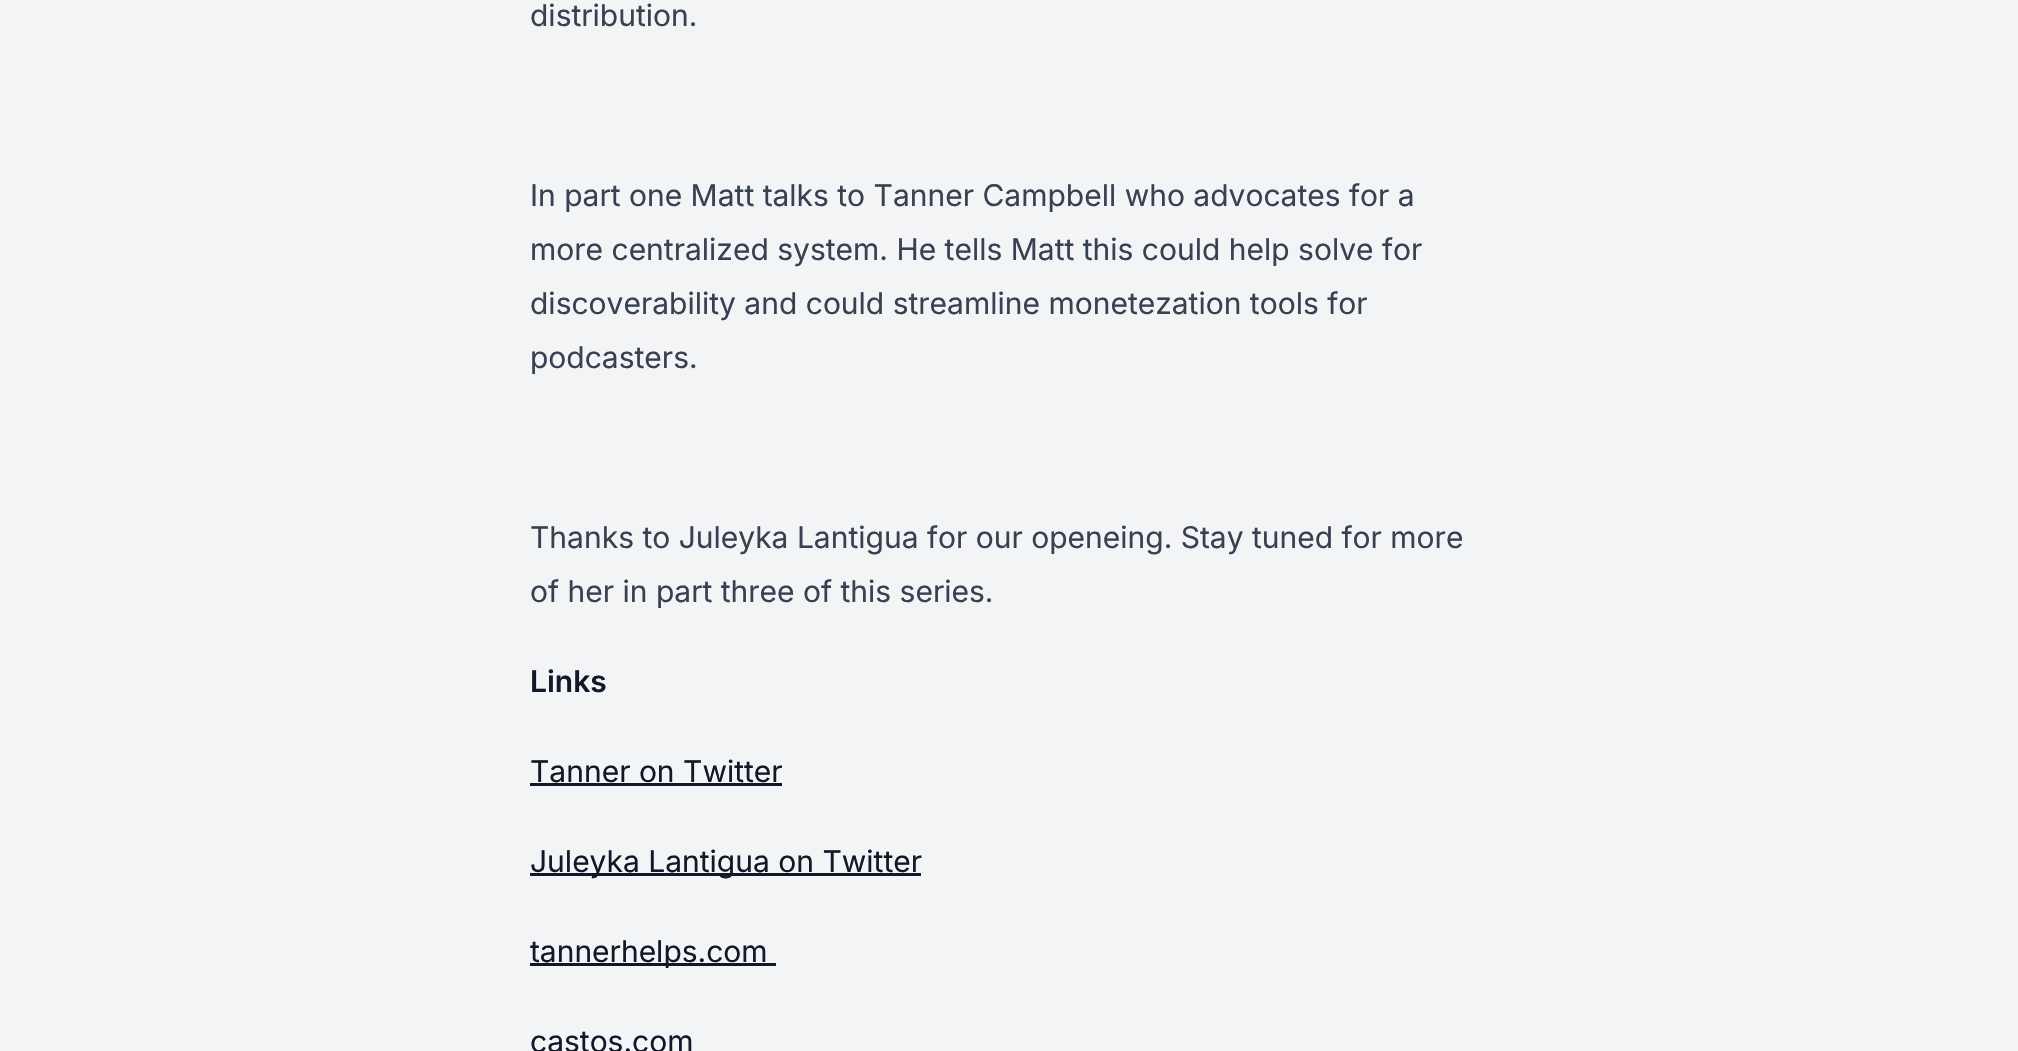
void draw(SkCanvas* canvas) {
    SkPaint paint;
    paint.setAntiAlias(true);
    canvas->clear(0xFFF3F4F6);
    SkFont font1(fontMgr->matchFamilyStyle("Inter", SkFontStyle::Normal()), 30);
    font1.setSubpixel(true);
    paint.setColor(0xFF374151);
    canvas->drawString("distribution.", 530, 26, font1, paint);
    canvas->drawString("In part one Matt talks to Tanner Campbell who advocates for a", 530, 206, font1, paint);
    canvas->drawString("more centralized system. He tells Matt this could help solve for", 530, 260, font1, paint);
    canvas->drawString("discoverability and could streamline monetezation tools for", 530, 314, font1, paint);
    canvas->drawString("podcasters.", 530, 368, font1, paint);
    canvas->drawString("Thanks to Juleyka Lantigua for our openeing. Stay tuned for more", 530, 548, font1, paint);
    canvas->drawString("of her in part three of this series.", 530, 602, font1, paint);
    SkFont font2(fontMgr->matchFamilyStyle("Inter", SkFontStyle(600, SkFontStyle::kNormal_Width, SkFontStyle::kUpright_Slant)), 30);
    font2.setSubpixel(true);
    paint.setColor(0xFF111827);
    canvas->drawString("Links", 530, 692, font2, paint);
    canvas->drawString("Tanner on Twitter", 530, 782, font1, paint);
    canvas->drawRect(SkRect::MakeXYWH(530, 783, 252, 3), paint);
    canvas->drawRect(SkRect::MakeXYWH(530, 873, 391, 3), paint);
    canvas->drawString("Juleyka Lantigua on Twitter", 530, 872, font1, paint);
    canvas->drawRect(SkRect::MakeXYWH(530, 963, 246, 3), paint);
    canvas->drawString("tannerhelps.com", 530, 962, font1, paint);
    canvas->drawString("castos.com", 530, 1052, font1, paint);
}
